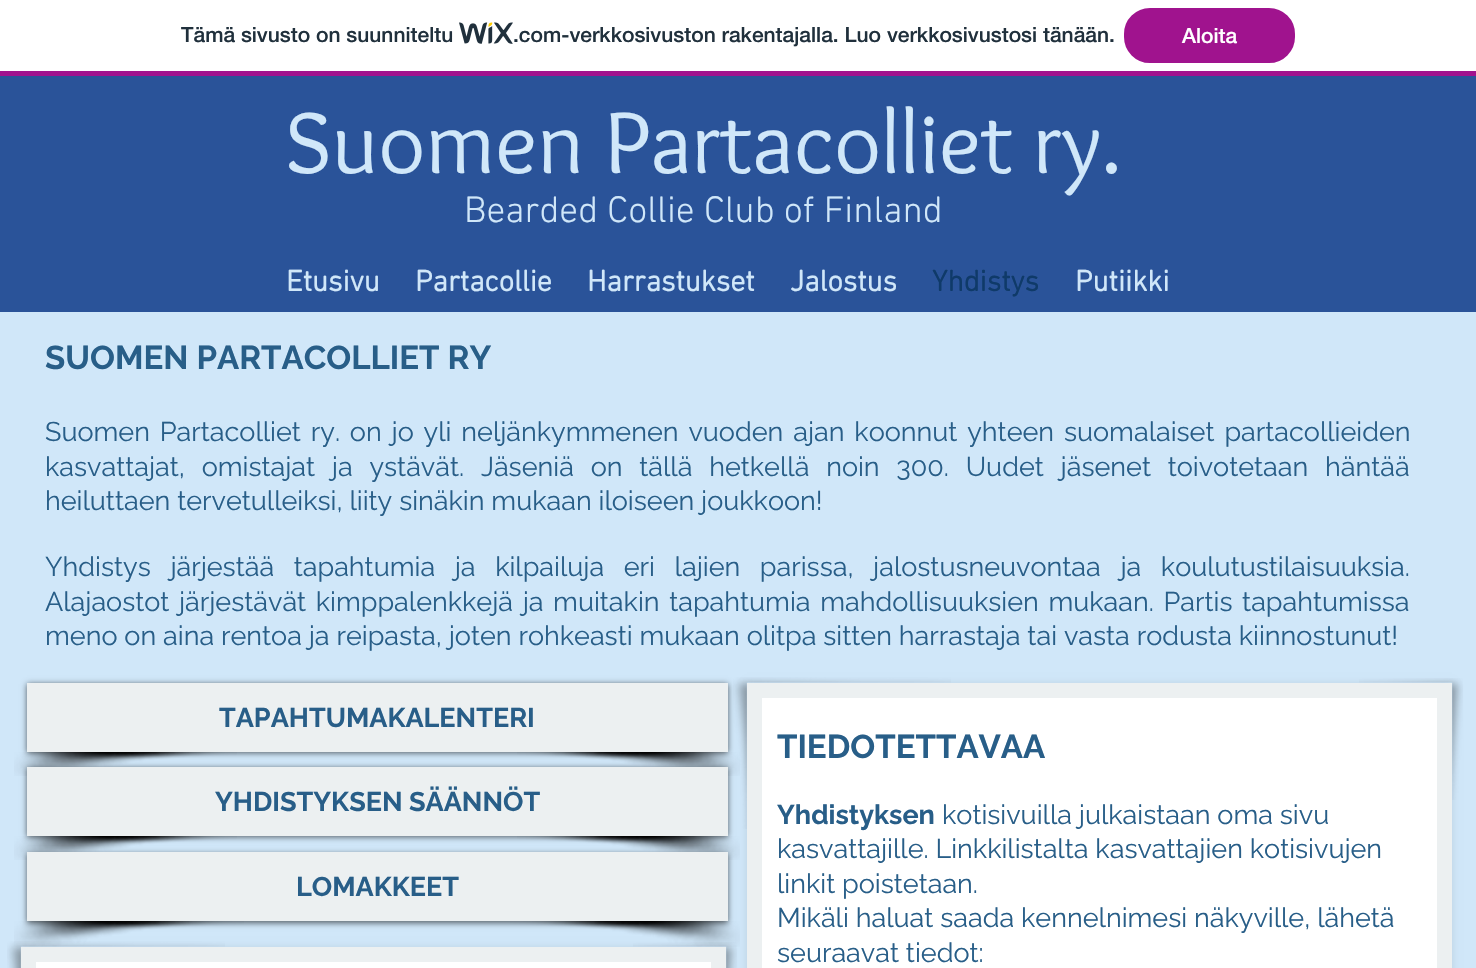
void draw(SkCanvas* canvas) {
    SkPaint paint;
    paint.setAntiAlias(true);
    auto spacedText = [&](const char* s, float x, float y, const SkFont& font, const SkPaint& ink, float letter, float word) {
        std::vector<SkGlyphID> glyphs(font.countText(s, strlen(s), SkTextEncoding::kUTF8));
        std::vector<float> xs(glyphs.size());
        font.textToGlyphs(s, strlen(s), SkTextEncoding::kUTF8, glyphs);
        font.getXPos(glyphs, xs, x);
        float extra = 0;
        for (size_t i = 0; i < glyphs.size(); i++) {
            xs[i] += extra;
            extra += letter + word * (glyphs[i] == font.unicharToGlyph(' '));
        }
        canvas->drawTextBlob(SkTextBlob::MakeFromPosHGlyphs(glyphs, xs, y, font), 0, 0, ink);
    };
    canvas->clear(0xFFFFFFFF);
    paint.setColor(0xFFA0138E);
    canvas->drawRect(SkRect::MakeXYWH(0, 71, 1476, 5), paint);
    SkFont font1(fontMgr->matchFamilyStyle("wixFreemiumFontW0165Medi", SkFontStyle(500, SkFontStyle::kNormal_Width, SkFontStyle::kUpright_Slant)), 21);
    font1.setSubpixel(true);
    paint.setColor(0xFF20303C);
    canvas->drawString("Tämä sivusto on suunniteltu", 181, 42, font1, paint);
    canvas->drawImageRect(SkImages::DeferredFromEncodedData(SkData::MakeFromFileName("img1.png")), SkRect::MakeXYWH(459, 22, 54, 22), SkSamplingOptions());
    canvas->drawString(".com-verkkosivuston rakentajalla. Luo verkkosivustosi tänään.", 513, 42, font1, paint);
    paint.setColor(0xFFA0138E);
    canvas->drawRoundRect(SkRect::MakeXYWH(1125, 9, 169, 53), 25, 25, paint);
    paint.setStyle(SkPaint::kStroke_Style);
    paint.setStrokeWidth(2);
    canvas->drawRoundRect(SkRect::MakeXYWH(1125, 9, 169, 53), 25, 25, paint);
    paint.setStyle(SkPaint::kFill_Style);
    paint.setColor(0xFFFFFFFF);
    canvas->drawString("Aloita", 1182, 43, font1, paint);
    paint.setColor(0xFF2A5399);
    canvas->drawRect(SkRect::MakeXYWH(0, 76, 1476, 236), paint);
    SkFont font2(fontMgr->matchFamilyStyle("Overlock", SkFontStyle::Normal()), 90);
    font2.setSubpixel(true);
    paint.setColor(0xFFD0E7F9);
    canvas->drawString("Suomen Partacolliet ry.", 285, 173, font2, paint);
    SkFont font3(fontMgr->matchFamilyStyle("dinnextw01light", SkFontStyle(300, SkFontStyle::kNormal_Width, SkFontStyle::kUpright_Slant)), 37.5f);
    font3.setSubpixel(true);
    canvas->drawString("Bearded Collie Club of Finland", 464, 222, font3, paint);
    SkFont font4(fontMgr->matchFamilyStyle("dinnextw01light", SkFontStyle::Bold()), 30);
    font4.setSubpixel(true);
    canvas->drawString("Etusivu", 286, 291, font4, paint);
    canvas->drawString("Partacollie", 415, 291, font4, paint);
    canvas->drawString("Harrastukset", 587, 291, font4, paint);
    canvas->drawString("Jalostus", 790, 291, font4, paint);
    paint.setColor(0xFF0F3A69);
    canvas->drawString("Yhdistys", 932, 291, font4, paint);
    paint.setColor(0xFFD0E7F9);
    canvas->drawString("Putiikki", 1075, 291, font4, paint);
    canvas->drawRect(SkRect::MakeXYWH(0, 312, 1476, 656), paint);
    SkFont font5(fontMgr->matchFamilyStyle("Raleway", SkFontStyle::Bold()), 33);
    font5.setSubpixel(true);
    paint.setColor(0xFF285E88);
    canvas->drawString("SUOMEN PARTACOLLIET RY", 45, 369, font5, paint);
    SkFont font6(fontMgr->matchFamilyStyle("Raleway", SkFontStyle::Normal()), 27);
    font6.setSubpixel(true);
    spacedText("Suomen Partacolliet ry. on jo yli neljänkymmenen vuoden ajan koonnut yhteen suomalaiset partacollieiden", 45, 441, font6, paint, 0, 3);
    spacedText("kasvattajat, omistajat ja ystävät. Jäseniä on tällä hetkellä noin 300. Uudet jäsenet toivotetaan häntää", 45, 476, font6, paint, 0, 9.9f);
    canvas->drawString("heiluttaen tervetulleiksi, liity sinäkin mukaan iloiseen joukkoon!", 45, 510, font6, paint);
    spacedText("Yhdistys järjestää tapahtumia ja kilpailuja eri lajien parissa, jalostusneuvontaa ja koulutustilaisuuksia.", 45, 576, font6, paint, 0, 12.75f);
    spacedText("Alajaostot järjestävät kimppalenkkejä ja muitakin tapahtumia mahdollisuuksien mukaan. Partis tapahtumissa", 45, 611, font6, paint, 0, 2.75f);
    canvas->drawString("meno on aina rentoa ja reipasta, joten rohkeasti mukaan olitpa sitten harrastaja tai vasta rodusta kiinnostunut!", 45, 645, font6, paint);
    canvas->drawImageRect(SkImages::DeferredFromEncodedData(SkData::MakeFromFileName("img2.png")), SkRect::MakeXYWH(14, 752, 223, 24), SkSamplingOptions());
    canvas->drawImageRect(SkImages::DeferredFromEncodedData(SkData::MakeFromFileName("img3.png")), SkRect::MakeXYWH(517, 752, 223, 24), SkSamplingOptions());
    paint.setColor(0x99000000);
    paint.setMaskFilter(SkMaskFilter::MakeBlur(kNormal_SkBlurStyle, 3));
    canvas->drawRect(SkRect::MakeXYWH(27, 684, 701, 69), paint);
    paint.setMaskFilter(nullptr);
    paint.setColor(0xFFECF0F1);
    canvas->drawRect(SkRect::MakeXYWH(27, 683, 701, 69), paint);
    SkFont font7(fontMgr->matchFamilyStyle("Raleway", SkFontStyle::Bold()), 27);
    font7.setSubpixel(true);
    paint.setColor(0xFF285E88);
    canvas->drawString("TAPAHTUMAKALENTERI", 219, 727, font7, paint);
    canvas->drawImageRect(SkImages::DeferredFromEncodedData(SkData::MakeFromFileName("img2.png")), SkRect::MakeXYWH(14, 836, 223, 24), SkSamplingOptions());
    canvas->drawImageRect(SkImages::DeferredFromEncodedData(SkData::MakeFromFileName("img3.png")), SkRect::MakeXYWH(517, 836, 223, 24), SkSamplingOptions());
    paint.setColor(0x99000000);
    paint.setMaskFilter(SkMaskFilter::MakeBlur(kNormal_SkBlurStyle, 3));
    canvas->drawRect(SkRect::MakeXYWH(27, 768, 701, 69), paint);
    paint.setMaskFilter(nullptr);
    paint.setColor(0xFFECF0F1);
    canvas->drawRect(SkRect::MakeXYWH(27, 767, 701, 69), paint);
    paint.setColor(0xFF285E88);
    canvas->drawString("YHDISTYKSEN SÄÄNNÖT", 215, 811, font7, paint);
    canvas->drawImageRect(SkImages::DeferredFromEncodedData(SkData::MakeFromFileName("img4.png")), SkRect::MakeXYWH(733, 677, 218, 152), SkSamplingOptions());
    canvas->drawImageRect(SkImages::DeferredFromEncodedData(SkData::MakeFromFileName("img5.png")), SkRect::MakeXYWH(1359, 678, 104, 122), SkSamplingOptions());
    canvas->drawImageRect(SkImages::DeferredFromEncodedData(SkData::MakeFromFileName("img7.png")), SkRect::MakeXYWH(510, 921, 230, 26), SkSamplingOptions());
    canvas->drawImageRect(SkImages::DeferredFromEncodedData(SkData::MakeFromFileName("img9.png")), SkRect::MakeXYWH(633, 942, 104, 26), SkSamplingOptions());
    paint.setColor(0x1A000000);
    paint.setMaskFilter(SkMaskFilter::MakeBlur(kNormal_SkBlurStyle, 4));
    canvas->drawRect(SkRect::MakeXYWH(747, 684, 705, 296), paint);
    paint.setMaskFilter(nullptr);
    paint.setColor(0xFFFFFFFF);
    canvas->drawRect(SkRect::MakeXYWH(754.5f, 690.5f, 690, 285), paint);
    paint.setStyle(SkPaint::kStroke_Style);
    paint.setStrokeWidth(15);
    paint.setColor(0xFFECF0F1);
    canvas->drawRect(SkRect::MakeXYWH(754.5f, 690.5f, 690, 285), paint);
    paint.setStyle(SkPaint::kFill_Style);
    paint.setColor(0xFF285E88);
    canvas->drawString("TIEDOTETTAVAA", 777, 758, font5, paint);
    canvas->drawString("Yhdistyksen", 777, 824, font7, paint);
    canvas->drawString("kotisivuilla julkaistaan oma sivu", 942, 824, font6, paint);
    canvas->drawString("kasvattajille. Linkkilistalta kasvattajien kotisivujen", 777, 858, font6, paint);
    canvas->drawString("linkit poistetaan.", 777, 893, font6, paint);
    canvas->drawString("Mikäli haluat saada kennelnimesi näkyville, lähetä", 777, 927, font6, paint);
    canvas->drawString("seuraavat tiedot:", 777, 962, font6, paint);
    canvas->drawImageRect(SkImages::DeferredFromEncodedData(SkData::MakeFromFileName("img6.png")), SkRect::MakeXYWH(14, 921, 230, 26), SkSamplingOptions());
    paint.setColor(0x99000000);
    paint.setMaskFilter(SkMaskFilter::MakeBlur(kNormal_SkBlurStyle, 3));
    canvas->drawRect(SkRect::MakeXYWH(27, 854, 701, 69), paint);
    paint.setMaskFilter(nullptr);
    paint.setColor(0xFFECF0F1);
    canvas->drawRect(SkRect::MakeXYWH(27, 852, 701, 69), paint);
    paint.setColor(0xFF285E88);
    canvas->drawString("LOMAKKEET", 296, 896, font7, paint);
    canvas->drawImageRect(SkImages::DeferredFromEncodedData(SkData::MakeFromFileName("img8.png")), SkRect::MakeXYWH(7, 941, 218, 27), SkSamplingOptions());
    paint.setColor(0x1A000000);
    paint.setMaskFilter(SkMaskFilter::MakeBlur(kNormal_SkBlurStyle, 4));
    canvas->drawRect(SkRect::MakeXYWH(21, 948, 705, 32), paint);
    paint.setMaskFilter(nullptr);
    paint.setColor(0xFFFFFFFF);
    canvas->drawRect(SkRect::MakeXYWH(28.5f, 954.5f, 690, 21), paint);
    paint.setStyle(SkPaint::kStroke_Style);
    paint.setColor(0xFFECF0F1);
    canvas->drawRect(SkRect::MakeXYWH(28.5f, 954.5f, 690, 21), paint);
}
